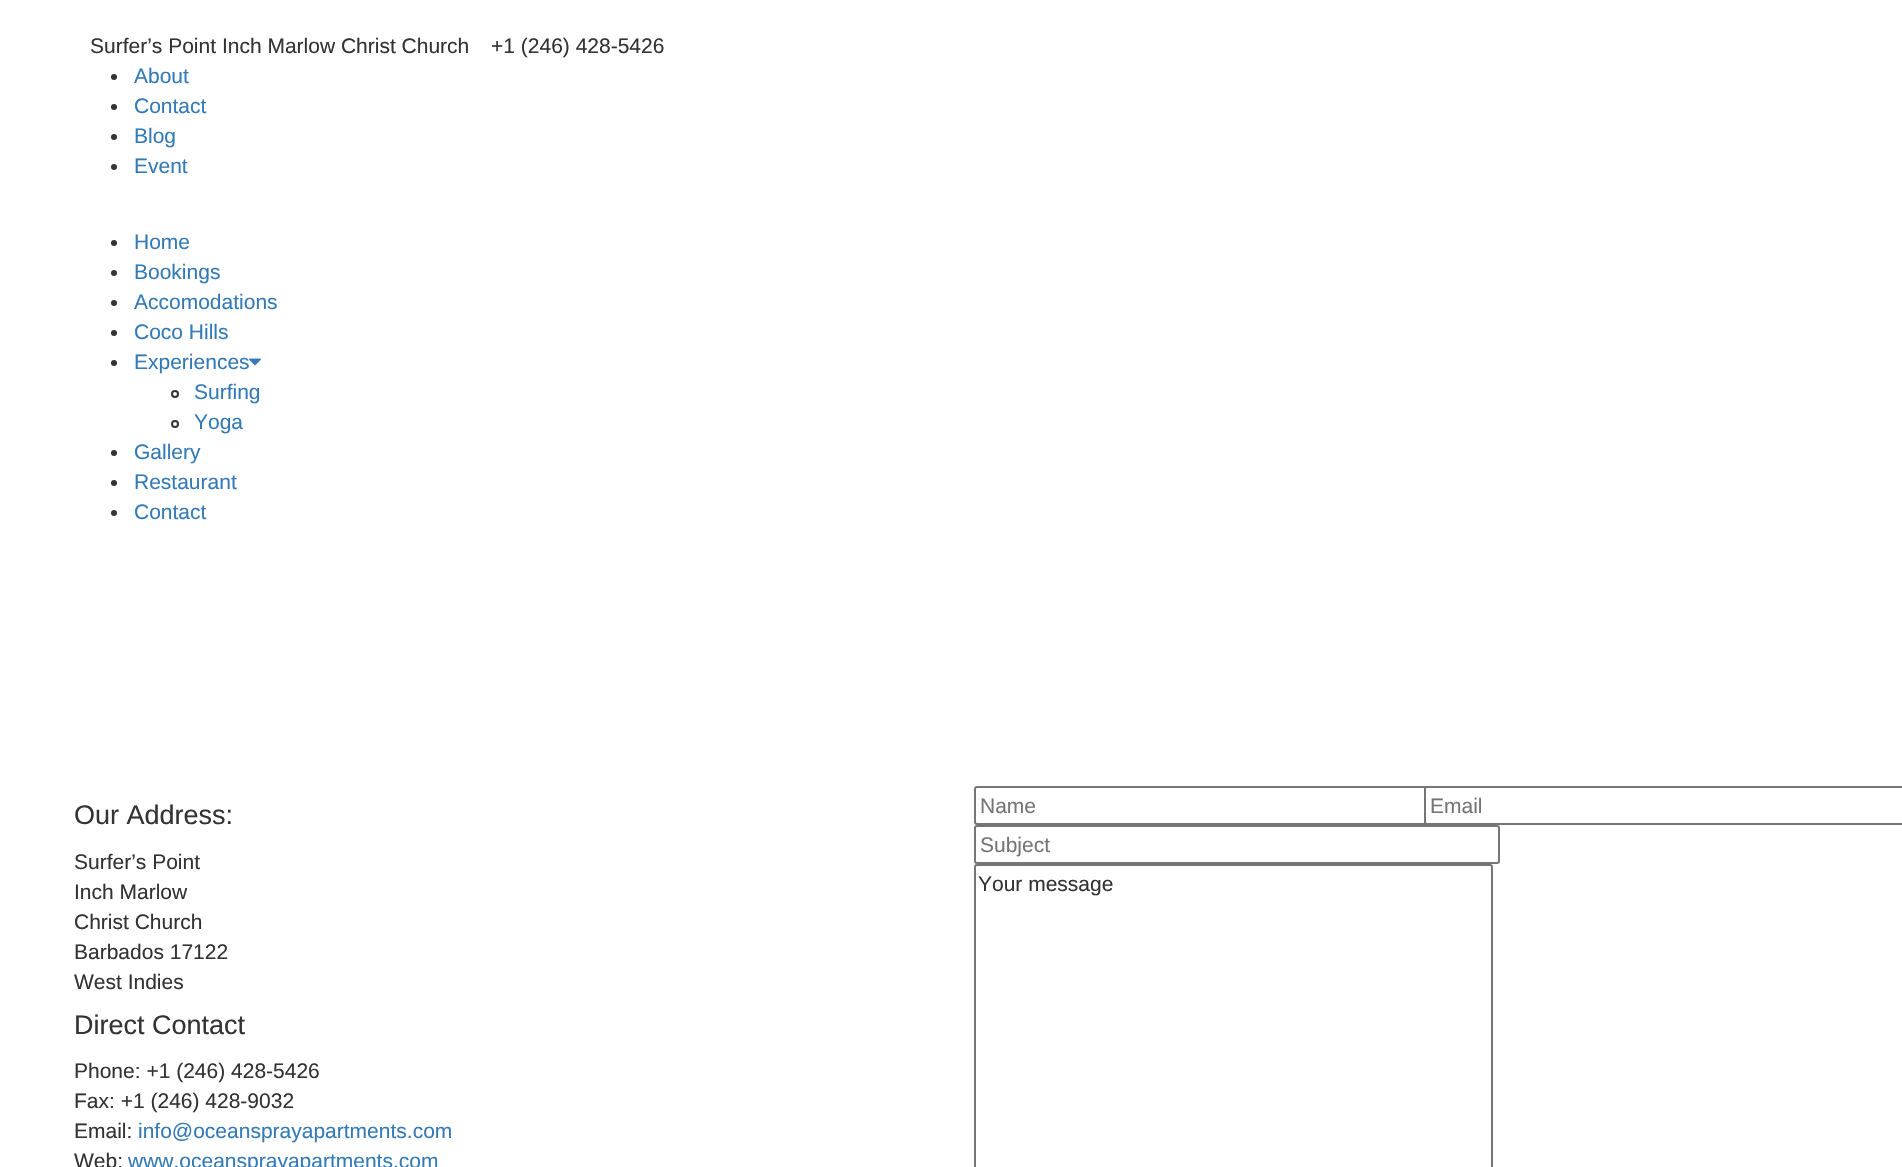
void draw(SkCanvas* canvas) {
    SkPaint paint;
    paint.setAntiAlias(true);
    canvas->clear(0xFFFFFFFF);
    SkFont font1(fontMgr->matchFamilyStyle("Liberation Sans", SkFontStyle::Normal()), 21);
    font1.setSubpixel(true);
    paint.setColor(0xFF333333);
    canvas->drawString("Surfer’s Point Inch Marlow Christ Church", 90, 53, font1, paint);
    canvas->drawString("+1 (246) 428-5426", 491, 53, font1, paint);
    canvas->drawCircle(114, 77, 3, paint);
    paint.setColor(0xFF337AB7);
    canvas->drawString("About", 134, 83, font1, paint);
    paint.setColor(0xFF333333);
    canvas->drawCircle(114, 107, 3, paint);
    paint.setColor(0xFF337AB7);
    canvas->drawString("Contact", 134, 113, font1, paint);
    paint.setColor(0xFF333333);
    canvas->drawCircle(114, 137, 3, paint);
    paint.setColor(0xFF337AB7);
    canvas->drawString("Blog", 134, 143, font1, paint);
    paint.setColor(0xFF333333);
    canvas->drawCircle(114, 167, 3, paint);
    paint.setColor(0xFF337AB7);
    canvas->drawString("Event", 134, 173, font1, paint);
    paint.setColor(0xFF333333);
    canvas->drawCircle(114, 243, 3, paint);
    paint.setColor(0xFF337AB7);
    canvas->drawString("Home", 134, 249, font1, paint);
    paint.setColor(0xFF333333);
    canvas->drawCircle(114, 273, 3, paint);
    paint.setColor(0xFF337AB7);
    canvas->drawString("Bookings", 134, 279, font1, paint);
    paint.setColor(0xFF333333);
    canvas->drawCircle(114, 303, 3, paint);
    paint.setColor(0xFF337AB7);
    canvas->drawString("Accomodations", 134, 309, font1, paint);
    paint.setColor(0xFF333333);
    canvas->drawCircle(114, 333, 3, paint);
    paint.setColor(0xFF337AB7);
    canvas->drawString("Coco Hills", 134, 339, font1, paint);
    paint.setColor(0xFF333333);
    canvas->drawCircle(114, 363, 3, paint);
    paint.setColor(0xFF337AB7);
    canvas->drawString("Experiences", 134, 369, font1, paint);
    canvas->drawImageRect(SkImages::DeferredFromEncodedData(SkData::MakeFromFileName("img1.png")), SkRect::MakeXYWH(249, 358, 12, 8), SkSamplingOptions());
    paint.setStyle(SkPaint::kStroke_Style);
    paint.setStrokeWidth(2);
    paint.setColor(0xFF333333);
    canvas->drawCircle(175, 394, 3, paint);
    paint.setStyle(SkPaint::kFill_Style);
    paint.setColor(0xFF337AB7);
    canvas->drawString("Surfing", 194, 399, font1, paint);
    paint.setStyle(SkPaint::kStroke_Style);
    paint.setColor(0xFF333333);
    canvas->drawCircle(175, 424, 3, paint);
    paint.setStyle(SkPaint::kFill_Style);
    paint.setColor(0xFF337AB7);
    canvas->drawString("Yoga", 194, 429, font1, paint);
    paint.setColor(0xFF333333);
    canvas->drawCircle(114, 453, 3, paint);
    paint.setColor(0xFF337AB7);
    canvas->drawString("Gallery", 134, 459, font1, paint);
    paint.setColor(0xFF333333);
    canvas->drawCircle(114, 483, 3, paint);
    paint.setColor(0xFF337AB7);
    canvas->drawString("Restaurant", 134, 489, font1, paint);
    paint.setColor(0xFF333333);
    canvas->drawCircle(114, 513, 3, paint);
    paint.setColor(0xFF337AB7);
    canvas->drawString("Contact", 134, 519, font1, paint);
    SkFont font2(fontMgr->matchFamilyStyle("Liberation Sans", SkFontStyle::Normal()), 27);
    font2.setSubpixel(true);
    paint.setColor(0xFF333333);
    canvas->drawString("Our Address:", 74, 824, font2, paint);
    canvas->drawString("Surfer’s Point", 74, 869, font1, paint);
    canvas->drawString("Inch Marlow", 74, 899, font1, paint);
    canvas->drawString("Christ Church", 74, 929, font1, paint);
    canvas->drawString("Barbados 17122", 74, 959, font1, paint);
    canvas->drawString("West Indies", 74, 989, font1, paint);
    canvas->drawString("Direct Contact", 74, 1034, font2, paint);
    canvas->drawString("Phone: +1 (246) 428-5426", 74, 1078, font1, paint);
    canvas->drawString("Fax: +1 (246) 428-9032", 74, 1108, font1, paint);
    canvas->drawString("Email:", 74, 1138, font1, paint);
    paint.setColor(0xFF337AB7);
    canvas->drawString("info@oceansprayapartments.com", 138, 1138, font1, paint);
    paint.setColor(0xFF333333);
    canvas->drawString("Web:", 74, 1168, font1, paint);
    paint.setColor(0xFF337AB7);
    canvas->drawString("www.oceansprayapartments.com", 128, 1168, font1, paint);
    paint.setStyle(SkPaint::kStroke_Style);
    paint.setColor(0xFF767676);
    canvas->drawRoundRect(SkRect::MakeXYWH(975, 787, 524, 37), 2, 2, paint);
    paint.setStyle(SkPaint::kFill_Style);
    paint.setColor(0xFF757575);
    canvas->drawString("Name", 980, 813, font1, paint);
    paint.setColor(0xFFFFFFFF);
    canvas->drawRoundRect(SkRect::MakeXYWH(1425, 787, 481, 37), 2, 2, paint);
    paint.setStyle(SkPaint::kStroke_Style);
    paint.setColor(0xFF767676);
    canvas->drawRoundRect(SkRect::MakeXYWH(1425, 787, 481, 37), 2, 2, paint);
    paint.setStyle(SkPaint::kFill_Style);
    paint.setColor(0xFF757575);
    canvas->drawString("Email", 1430, 813, font1, paint);
    paint.setStyle(SkPaint::kStroke_Style);
    paint.setColor(0xFF767676);
    canvas->drawRoundRect(SkRect::MakeXYWH(975, 826, 524, 37), 2, 2, paint);
    paint.setStyle(SkPaint::kFill_Style);
    paint.setColor(0xFF757575);
    canvas->drawString("Subject", 980, 852, font1, paint);
    paint.setStyle(SkPaint::kStroke_Style);
    paint.setColor(0xFF767676);
    canvas->drawRoundRect(SkRect::MakeXYWH(975, 865, 517, 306), 2, 2, paint);
    paint.setStyle(SkPaint::kFill_Style);
    paint.setColor(0xFF333333);
    canvas->drawString("Your message", 978, 891, font1, paint);
}
